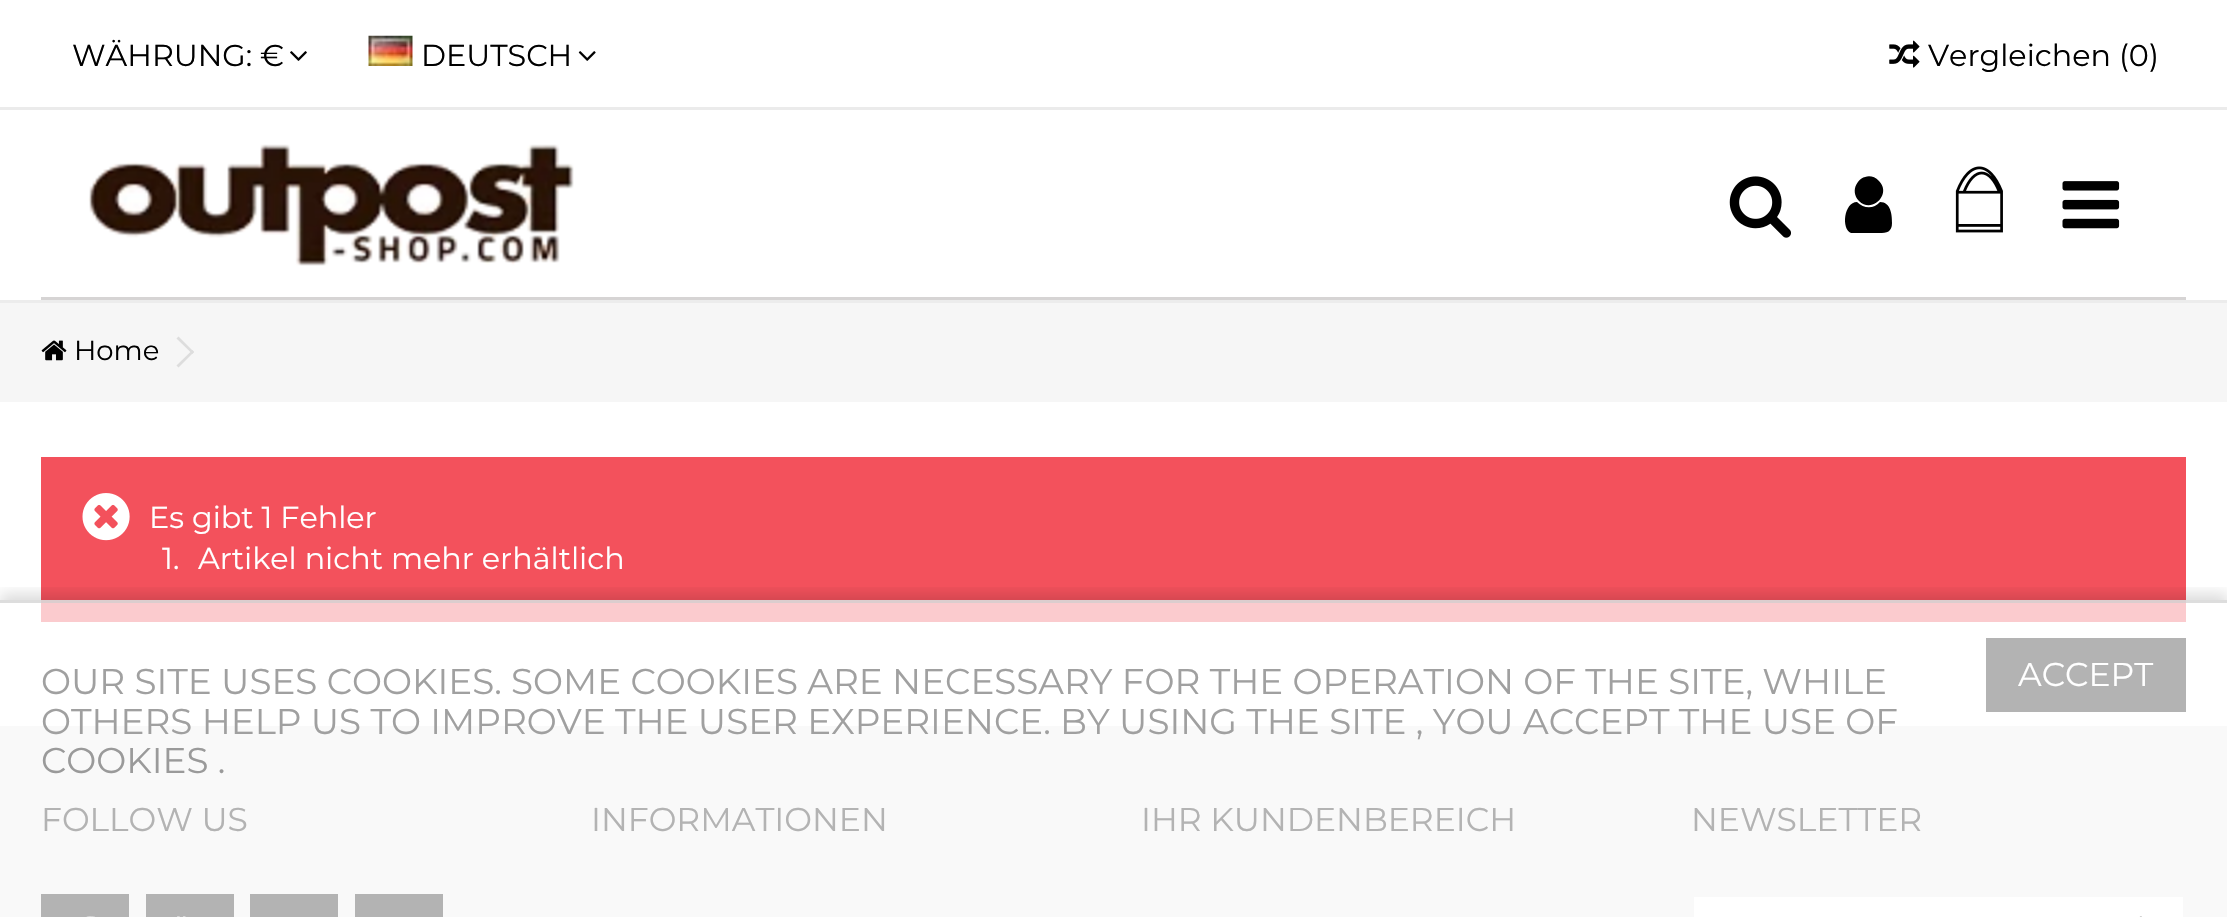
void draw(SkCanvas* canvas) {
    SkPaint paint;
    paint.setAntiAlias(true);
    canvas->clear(0xFFFFFFFF);
    paint.setColor(0xFFDDDDDD);
    canvas->drawRect(SkRect::MakeXYWH(0, 600, 2227, 3), paint);
    paint.setColor(0xFFECECEC);
    canvas->drawRect(SkRect::MakeXYWH(0, 300, 2227, 3), paint);
    paint.setColor(0xFFEBEBEB);
    canvas->drawRect(SkRect::MakeXYWH(0, 107, 2227, 3), paint);
    SkFont font1(fontMgr->matchFamilyStyle("Montserrat", SkFontStyle::Normal()), 30.25f);
    font1.setSubpixel(true);
    paint.setColor(0xFF000000);
    canvas->drawString("WÄHRUNG: €", 72, 66, font1, paint);
    canvas->drawImageRect(SkImages::DeferredFromEncodedData(SkData::MakeFromFileName("img1.png")), SkRect::MakeXYWH(290, 51, 17, 10), SkSamplingOptions());
    canvas->drawImageRect(SkImages::DeferredFromEncodedData(SkData::MakeFromFileName("img2.png")), SkRect::MakeXYWH(368, 35, 45, 31), SkSamplingOptions());
    canvas->drawString("DEUTSCH", 421, 66, font1, paint);
    canvas->drawImageRect(SkImages::DeferredFromEncodedData(SkData::MakeFromFileName("img3.png")), SkRect::MakeXYWH(578, 51, 18, 10), SkSamplingOptions());
    canvas->drawImageRect(SkImages::DeferredFromEncodedData(SkData::MakeFromFileName("img4.png")), SkRect::MakeXYWH(1889, 40, 31, 28), SkSamplingOptions());
    canvas->drawString("Vergleichen (0)", 1928, 66, font1, paint);
    paint.setColor(0xFFD6D4D4);
    canvas->drawRect(SkRect::MakeXYWH(41, 297, 2145, 3), paint);
    canvas->drawImageRect(SkImages::DeferredFromEncodedData(SkData::MakeFromFileName("img5.png")), SkRect::MakeXYWH(88, 144, 486, 122), SkSamplingOptions());
    canvas->drawImageRect(SkImages::DeferredFromEncodedData(SkData::MakeFromFileName("img6.png")), SkRect::MakeXYWH(1729, 176, 62, 62), SkSamplingOptions());
    paint.setColor(0xFF000000);
    canvas->drawPath(SkPathBuilder().moveTo(1892, 223).cubicTo(1892, 232, 1887, 233, 1879, 233).lineTo(1851, 233).cubicTo(1841, 229, 1844, 202, 1857, 202).cubicTo(1864, 209, 1874, 209, 1880, 202).cubicTo(1891, 202, 1892, 215, 1892, 223).close().moveTo(1879, 181).cubicTo(1892, 194, 1872, 214, 1859, 201).cubicTo(1846, 187, 1866, 167, 1879, 181).close().detach(), paint);
    canvas->drawImageRect(SkImages::DeferredFromEncodedData(SkData::MakeFromFileName("img7.png")), SkRect::MakeXYWH(1955, 166, 48, 67), SkSamplingOptions());
    canvas->drawImageRect(SkImages::DeferredFromEncodedData(SkData::MakeFromFileName("img8.png")), SkRect::MakeXYWH(2062, 181, 58, 48), SkSamplingOptions());
    paint.setColor(0xFFF6F6F6);
    canvas->drawRect(SkRect::MakeXYWH(0, 303, 2227, 99), paint);
    canvas->drawImageRect(SkImages::DeferredFromEncodedData(SkData::MakeFromFileName("img9.png")), SkRect::MakeXYWH(41, 340, 26, 21), SkSamplingOptions());
    SkFont font2(fontMgr->matchFamilyStyle("Montserrat", SkFontStyle::Normal()), 27.5f);
    font2.setSubpixel(true);
    paint.setColor(0xFF000000);
    canvas->drawString("Home", 74, 360, font2, paint);
    paint.setColor(0xFFDDDDDD);
    canvas->drawPath(SkPathBuilder().moveTo(178.5f, 336.5f).lineTo(194, 352).lineTo(192.5f, 354).lineTo(176.5f, 338.5f).close().detach(), paint);
    canvas->drawPath(SkPathBuilder().moveTo(192.5f, 350).lineTo(194, 352).lineTo(178.5f, 367.5f).lineTo(176.5f, 365.5f).close().detach(), paint);
    paint.setColor(0xFFF3515C);
    canvas->drawRect(SkRect::MakeXYWH(41, 457, 2145, 143), paint);
    paint.setColor(0xFFFBCBCE);
    canvas->drawRect(SkRect::MakeXYWH(41, 603, 2145, 19), paint);
    paint.setColor(0xFFDCCDCE);
    canvas->drawRect(SkRect::MakeXYWH(41, 600, 2145, 3), paint);
    canvas->drawImageRect(SkImages::DeferredFromEncodedData(SkData::MakeFromFileName("img10.png")), SkRect::MakeXYWH(82, 493, 48, 48), SkSamplingOptions());
    paint.setColor(0xFFFFFFFF);
    canvas->drawString("Es gibt 1 Fehler", 149, 528, font1, paint);
    canvas->drawString("1.", 162, 569, font1, paint);
    canvas->drawString("Artikel nicht mehr erhältlich", 198, 569, font1, paint);
    paint.setColor(0xFFF9F9F9);
    canvas->drawRect(SkRect::MakeXYWH(0, 726, 2227, 191), paint);
    SkFont font3(fontMgr->matchFamilyStyle("Montserrat", SkFontStyle::Normal()), 33);
    font3.setSubpixel(true);
    paint.setColor(0xFFB3B3B3);
    canvas->drawString("FOLLOW US", 41, 831, font3, paint);
    canvas->drawRect(SkRect::MakeXYWH(41, 894, 88, 23), paint);
    canvas->drawImageRect(SkImages::DeferredFromEncodedData(SkData::MakeFromFileName("img11.png")), SkRect::MakeXYWH(86, 916, 9, 1), SkSamplingOptions());
    canvas->drawRect(SkRect::MakeXYWH(146, 894, 88, 23), paint);
    canvas->drawImageRect(SkImages::DeferredFromEncodedData(SkData::MakeFromFileName("img12.png")), SkRect::MakeXYWH(177, 916, 9, 1), SkSamplingOptions());
    canvas->drawRect(SkRect::MakeXYWH(250, 894, 88, 23), paint);
    canvas->drawRect(SkRect::MakeXYWH(355, 894, 88, 23), paint);
    canvas->drawString("INFORMATIONEN", 591, 831, font3, paint);
    canvas->drawString("IHR KUNDENBEREICH", 1141, 831, font3, paint);
    canvas->drawString("NEWSLETTER", 1691, 831, font3, paint);
    paint.setColor(0xFFFFFFFF);
    canvas->drawRect(SkRect::MakeXYWH(1694, 897, 489, 20), paint);
    canvas->drawImageRect(SkImages::DeferredFromEncodedData(SkData::MakeFromFileName("img13.png")), SkRect::MakeXYWH(2139, 916, 3, 1), SkSamplingOptions());
    canvas->save();
    canvas->clipRect(SkRect::MakeXYWH(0, 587, 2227, 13));
    paint.setColor(0x24000000);
    paint.setMaskFilter(SkMaskFilter::MakeBlur(kNormal_SkBlurStyle, 7));
    canvas->drawRect(SkRect::MakeXYWH(0, 594, 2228, 319), paint);
    paint.setMaskFilter(nullptr);
    canvas->restore();
    SkFont font4(fontMgr->matchFamilyStyle("Montserrat", SkFontStyle::Normal()), 35.75f);
    font4.setSubpixel(true);
    paint.setColor(0xFFA0A0A0);
    canvas->drawString("OUR SITE USES COOKIES. SOME COOKIES ARE NECESSARY FOR THE OPERATION OF THE SITE, WHILE", 41, 694, font4, paint);
    canvas->drawString("OTHERS HELP US TO IMPROVE THE USER EXPERIENCE. BY USING THE SITE , YOU ACCEPT THE USE OF", 41, 734, font4, paint);
    paint.setColor(0xFF9A9A9A);
    canvas->drawString("COOKIES .", 41, 773, font4, paint);
    paint.setColor(0xFFB3B3B3);
    canvas->drawRect(SkRect::MakeXYWH(1986, 638, 200, 74), paint);
    paint.setColor(0xFFFFFFFF);
    canvas->drawString("ACCEPT", 2018, 686, font3, paint);
}
